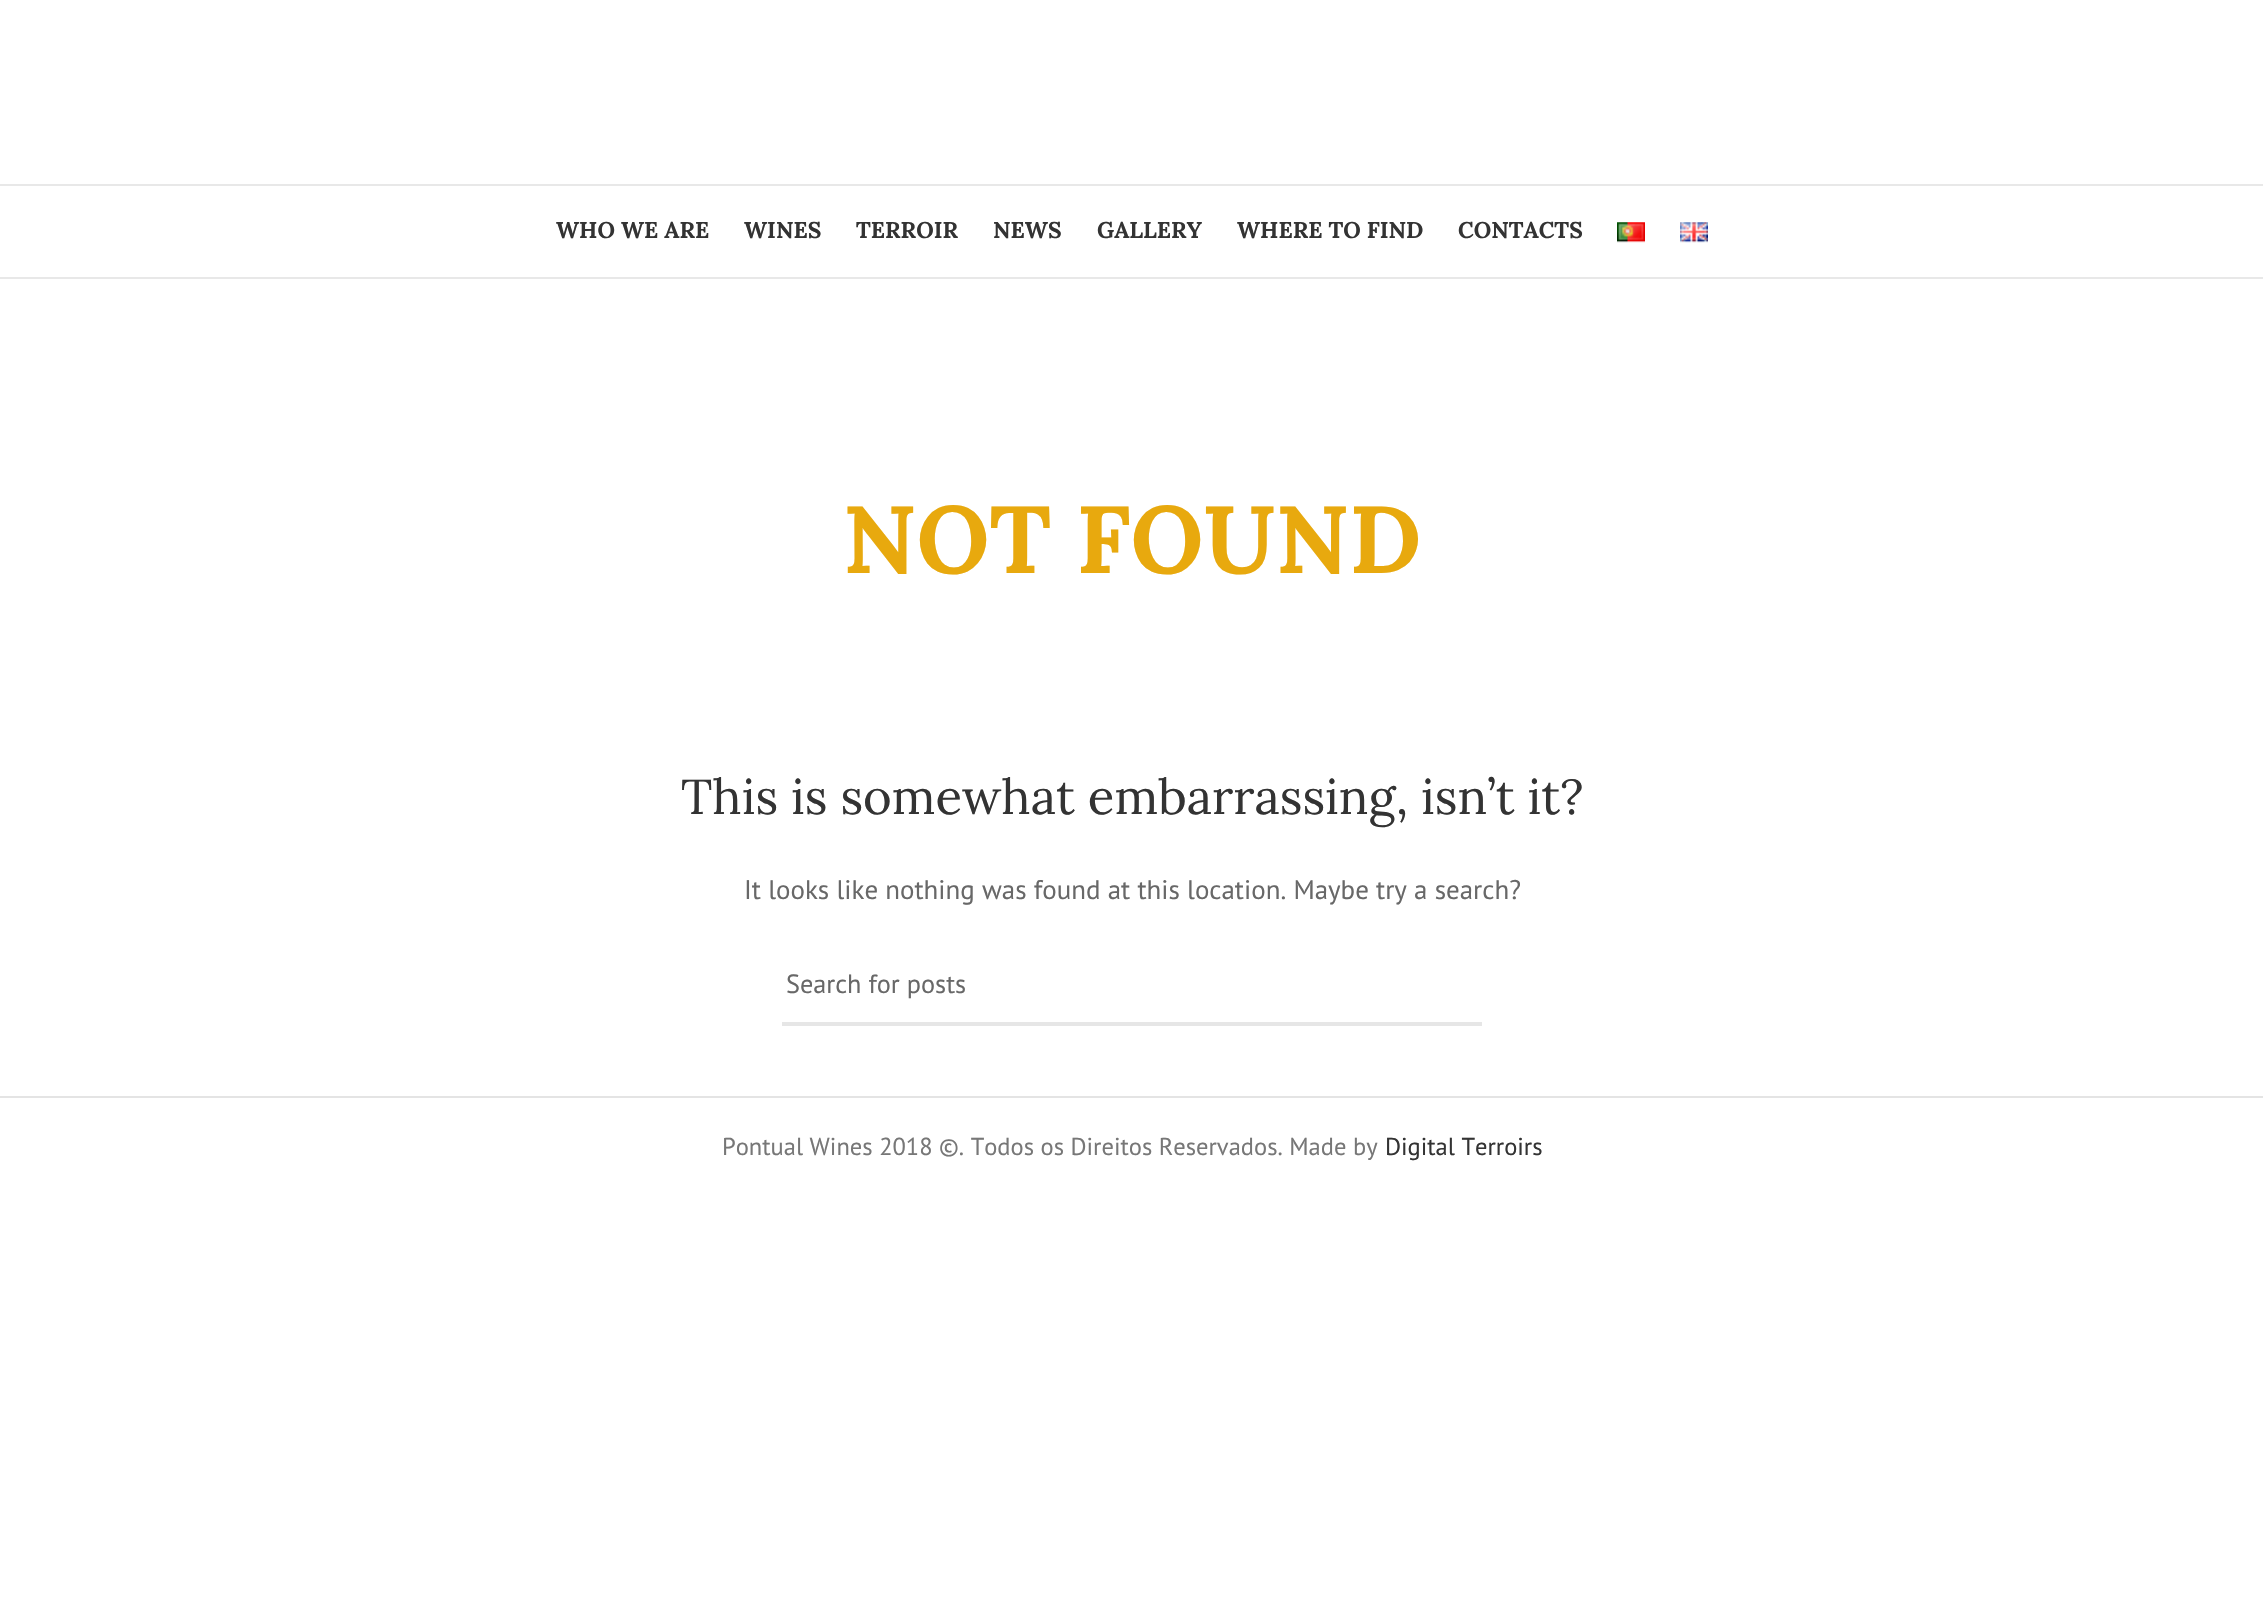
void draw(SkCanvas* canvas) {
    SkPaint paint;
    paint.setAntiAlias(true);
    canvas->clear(0xFFFFFFFF);
    paint.setColor(0xFFE8E8E8);
    canvas->drawRect(SkRect::MakeXYWH(0, 184, 2263, 2), paint);
    canvas->drawRect(SkRect::MakeXYWH(0, 277, 2263, 2), paint);
    SkFont font1(fontMgr->matchFamilyStyle("Lora", SkFontStyle::Bold()), 22.75f);
    font1.setSubpixel(true);
    paint.setColor(0xFF333333);
    canvas->drawString("WHO WE ARE", 556, 238, font1, paint);
    canvas->drawString("WINES", 744, 238, font1, paint);
    canvas->drawString("TERROIR", 856, 238, font1, paint);
    canvas->drawString("NEWS", 993, 238, font1, paint);
    canvas->drawString("GALLERY", 1097, 238, font1, paint);
    canvas->drawString("WHERE TO FIND", 1237, 238, font1, paint);
    canvas->drawString("CONTACTS", 1458, 238, font1, paint);
    canvas->drawImageRect(SkImages::DeferredFromEncodedData(SkData::MakeFromFileName("img1.png")), SkRect::MakeXYWH(1617, 222, 28, 21), SkSamplingOptions());
    canvas->drawImageRect(SkImages::DeferredFromEncodedData(SkData::MakeFromFileName("img2.png")), SkRect::MakeXYWH(1680, 222, 28, 21), SkSamplingOptions());
    SkFont font2(fontMgr->matchFamilyStyle("Lora", SkFontStyle::Bold()), 95);
    font2.setSubpixel(true);
    paint.setColor(0xFFE8A90E);
    canvas->drawString("NOT FOUND", 843, 573, font2, paint);
    SkFont font3(fontMgr->matchFamilyStyle("Lora", SkFontStyle::Normal()), 49);
    font3.setSubpixel(true);
    paint.setColor(0xFF333333);
    canvas->drawString("This is somewhat embarrassing, isn’t it?", 681, 814, font3, paint);
    SkFont font4(fontMgr->matchFamilyStyle("PT Sans", SkFontStyle::Normal()), 26.95f);
    font4.setSubpixel(true);
    paint.setColor(0xFF686868);
    canvas->drawString("It looks like nothing was found at this location. Maybe try a search?", 744, 899, font4, paint);
    paint.setColor(0xFFE6E6E6);
    canvas->drawRect(SkRect::MakeXYWH(782, 1022, 700, 4), paint);
    SkFont font5(fontMgr->matchFamilyStyle("PT Sans", SkFontStyle::Normal()), 26.25f);
    font5.setSubpixel(true);
    paint.setColor(0xFF686868);
    canvas->drawString("Search for posts", 786, 993, font5, paint);
    paint.setColor(0xFFE4E4E4);
    canvas->drawRect(SkRect::MakeXYWH(0, 1096, 2263, 2), paint);
    SkFont font6(fontMgr->matchFamilyStyle("PT Sans", SkFontStyle::Normal()), 24.5f);
    font6.setSubpixel(true);
    paint.setColor(0xFF777777);
    canvas->drawString("Pontual Wines 2018 ©. Todos os Direitos Reservados. Made by", 722, 1155, font6, paint);
    paint.setColor(0xFF333333);
    canvas->drawString("Digital Terroirs", 1385, 1155, font6, paint);
}
